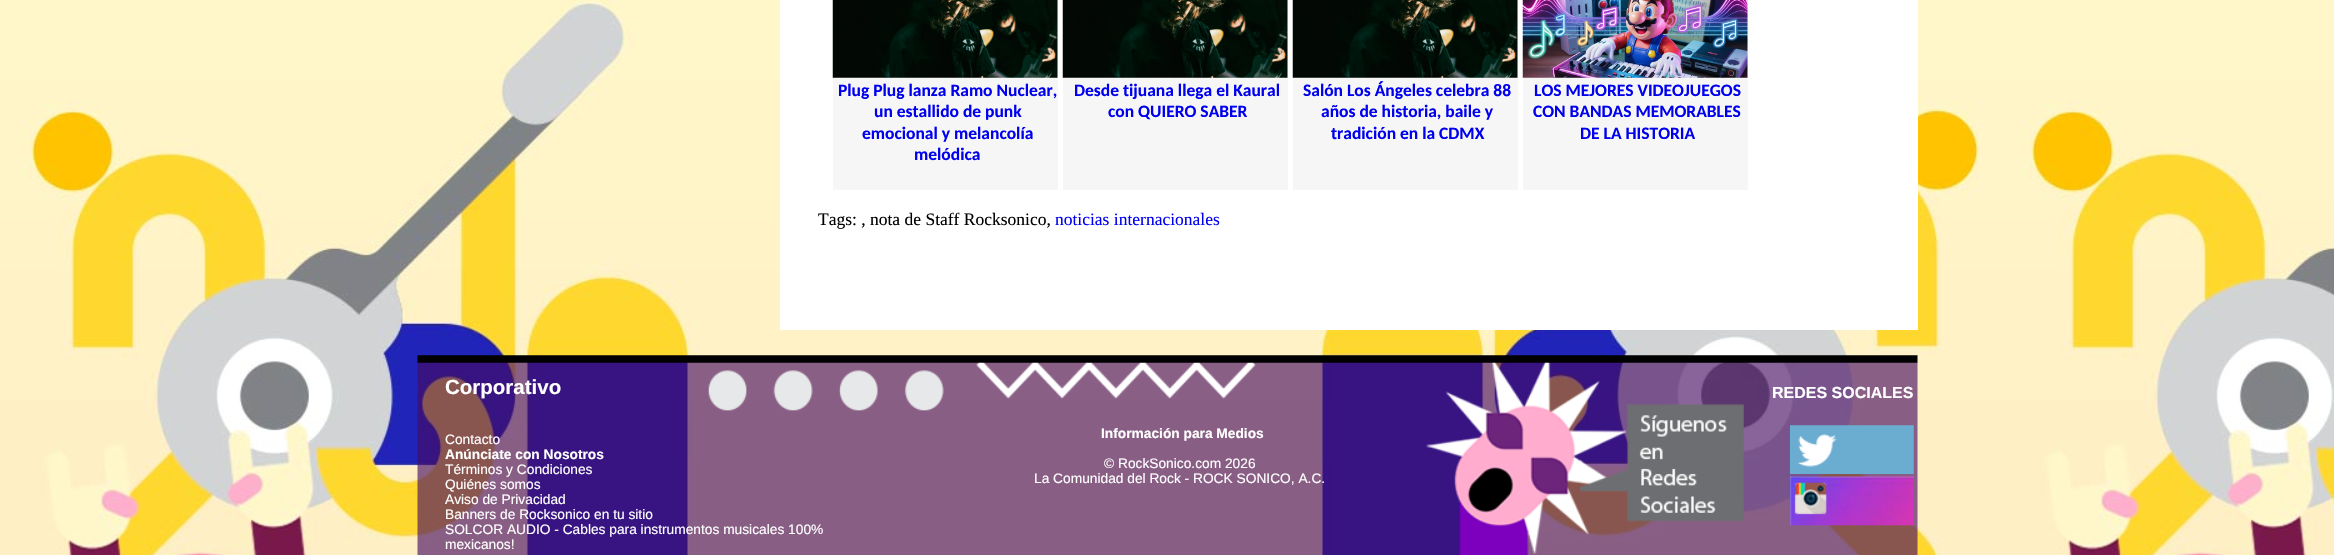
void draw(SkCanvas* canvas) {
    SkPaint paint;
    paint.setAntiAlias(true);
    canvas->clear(0xFFFFFFFF);
    canvas->drawImageRect(SkImages::DeferredFromEncodedData(SkData::MakeFromFileName("img1.png")), SkRect::MakeXYWH(0, 0, 2334, 555), SkSamplingOptions());
    paint.setColor(0xFFFFFFFF);
    canvas->drawRect(SkRect::MakeXYWH(780, 0, 1138, 330), paint);
    paint.setColor(0xFFF6F6F6);
    canvas->drawRect(SkRect::MakeXYWH(833, 0, 225, 190), paint);
    canvas->drawImageRect(SkImages::DeferredFromEncodedData(SkData::MakeFromFileName("img2.png")), SkRect::MakeXYWH(832, 0, 226, 78), SkSamplingOptions());
    SkFont font1(fontMgr->matchFamilyStyle("Carlito", SkFontStyle::Bold()), 17.5f);
    font1.setSubpixel(true);
    paint.setColor(0xFF0000EE);
    canvas->drawString("Plug Plug lanza Ramo Nuclear,", 838, 96, font1, paint);
    canvas->drawString("un estallido de punk", 874, 117, font1, paint);
    canvas->drawString("emocional y melancolía", 862, 139, font1, paint);
    canvas->drawString("melódica", 914, 160, font1, paint);
    paint.setColor(0xFFF6F6F6);
    canvas->drawRect(SkRect::MakeXYWH(1063, 0, 225, 190), paint);
    canvas->drawImageRect(SkImages::DeferredFromEncodedData(SkData::MakeFromFileName("img3.png")), SkRect::MakeXYWH(1062, 0, 226, 78), SkSamplingOptions());
    paint.setColor(0xFF0000EE);
    canvas->drawString("Desde tijuana llega el Kaural", 1074, 96, font1, paint);
    canvas->drawString("con QUIERO SABER", 1108, 117, font1, paint);
    paint.setColor(0xFFF6F6F6);
    canvas->drawRect(SkRect::MakeXYWH(1293, 0, 225, 190), paint);
    canvas->drawImageRect(SkImages::DeferredFromEncodedData(SkData::MakeFromFileName("img2.png")), SkRect::MakeXYWH(1292, 0, 226, 78), SkSamplingOptions());
    paint.setColor(0xFF0000EE);
    canvas->drawString("Salón Los Ángeles celebra 88", 1303, 96, font1, paint);
    canvas->drawString("años de historia, baile y", 1321, 117, font1, paint);
    canvas->drawString("tradición en la CDMX", 1331, 139, font1, paint);
    paint.setColor(0xFFF6F6F6);
    canvas->drawRect(SkRect::MakeXYWH(1523, 0, 225, 190), paint);
    canvas->drawImageRect(SkImages::DeferredFromEncodedData(SkData::MakeFromFileName("img4.png")), SkRect::MakeXYWH(1522, 0, 226, 78), SkSamplingOptions());
    paint.setColor(0xFF0000EE);
    canvas->drawString("LOS MEJORES VIDEOJUEGOS", 1534, 96, font1, paint);
    canvas->drawString("CON BANDAS MEMORABLES", 1533, 117, font1, paint);
    canvas->drawString("DE LA HISTORIA", 1580, 139, font1, paint);
    SkFont font2(fontMgr->matchFamilyStyle("Liberation Serif", SkFontStyle::Normal()), 17.5f);
    font2.setSubpixel(true);
    paint.setColor(0xFF000000);
    canvas->drawString("Tags: , nota de Staff Rocksonico,", 818, 225, font2, paint);
    paint.setColor(0xFF0000EE);
    canvas->drawString("noticias internacionales", 1055, 225, font2, paint);
    canvas->drawImageRect(SkImages::DeferredFromEncodedData(SkData::MakeFromFileName("img5.png")), SkRect::MakeXYWH(417, 355, 1501, 200), SkSamplingOptions());
    SkFont font3(fontMgr->matchFamilyStyle("Liberation Sans", SkFontStyle::Bold()), 20.5f);
    font3.setSubpixel(true);
    paint.setColor(0xFFFFFFFF);
    canvas->drawString("Corporativo", 445, 394, font3, paint);
    SkFont font4(fontMgr->matchFamilyStyle("Liberation Sans", SkFontStyle::Normal()), 13.75f);
    font4.setSubpixel(true);
    canvas->drawString("Contacto", 445, 444, font4, paint);
    SkFont font5(fontMgr->matchFamilyStyle("Liberation Sans", SkFontStyle::Bold()), 13.75f);
    font5.setSubpixel(true);
    canvas->drawString("Anúnciate con Nosotros", 445, 459, font5, paint);
    canvas->drawString("Términos y Condiciones", 445, 474, font4, paint);
    canvas->drawString("Quiénes somos", 445, 489, font4, paint);
    canvas->drawString("Aviso de Privacidad", 445, 504, font4, paint);
    canvas->drawString("Banners de Rocksonico en tu sitio", 445, 519, font4, paint);
    canvas->drawString("SOLCOR AUDIO - Cables para instrumentos musicales 100%", 445, 534, font4, paint);
    canvas->drawString("mexicanos!", 445, 549, font4, paint);
    SkFont font6(fontMgr->matchFamilyStyle("Liberation Sans", SkFontStyle::Bold()), 16);
    font6.setSubpixel(true);
    canvas->drawString("REDES SOCIALES", 1772, 398, font6, paint);
    canvas->drawImageRect(SkImages::DeferredFromEncodedData(SkData::MakeFromFileName("img6.png")), SkRect::MakeXYWH(1790, 425, 124, 49), SkSamplingOptions());
    canvas->drawImageRect(SkImages::DeferredFromEncodedData(SkData::MakeFromFileName("img7.png")), SkRect::MakeXYWH(1790, 476, 124, 50), SkSamplingOptions());
    canvas->drawString("Información para Medios", 1101, 438, font5, paint);
    canvas->drawString("© RockSonico.com 2026", 1104, 468, font4, paint);
    canvas->drawString("La Comunidad del Rock - ROCK SONICO, A.C.", 1034, 483, font4, paint);
}
